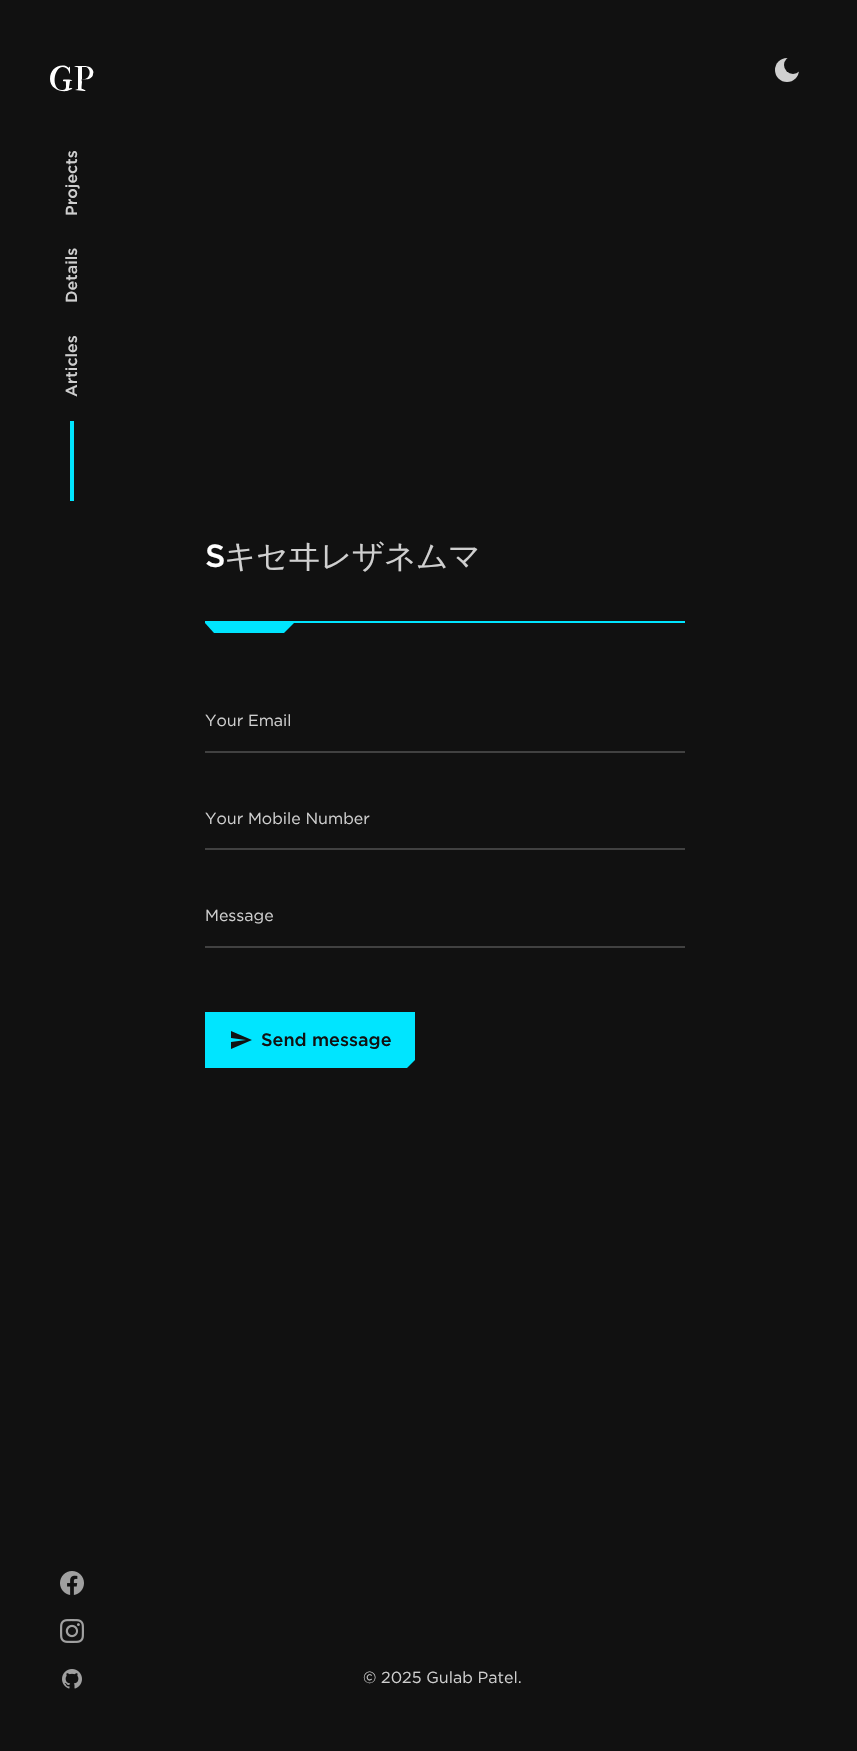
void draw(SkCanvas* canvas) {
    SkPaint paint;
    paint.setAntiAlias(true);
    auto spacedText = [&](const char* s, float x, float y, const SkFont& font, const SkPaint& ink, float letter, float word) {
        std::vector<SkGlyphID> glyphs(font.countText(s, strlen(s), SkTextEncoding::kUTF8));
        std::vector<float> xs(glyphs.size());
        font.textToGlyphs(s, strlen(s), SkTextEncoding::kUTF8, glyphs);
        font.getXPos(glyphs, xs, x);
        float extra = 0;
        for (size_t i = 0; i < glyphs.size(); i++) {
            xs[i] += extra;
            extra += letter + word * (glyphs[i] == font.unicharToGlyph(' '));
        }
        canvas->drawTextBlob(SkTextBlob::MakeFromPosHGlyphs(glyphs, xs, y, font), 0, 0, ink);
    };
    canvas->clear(0xFF111111);
    paint.setColor(0xFFFFFFFF);
    canvas->drawPath(SkPathBuilder(SkPathFillType::kEvenOdd).moveTo(50, 79).cubicTo(50, 88, 59, 92, 67, 91).lineTo(72, 89).cubicTo(73, 88, 71, 88, 70, 88).cubicTo(69, 89, 69, 88, 69, 87).lineTo(70, 81).cubicTo(78, 80, 63, 79, 63, 80).lineTo(63, 81).cubicTo(66, 82, 66, 79, 66, 86).cubicTo(66, 89, 65, 90, 62, 90).cubicTo(49, 89, 55, 61, 66, 68).cubicTo(70, 70, 70, 79, 70, 70).lineTo(70, 67).cubicTo(69, 66, 69, 68, 69, 68).lineTo(66, 66).cubicTo(57, 64, 50, 70, 50, 79).close().moveTo(75, 90).lineTo(84, 91).cubicTo(88, 91, 83, 89, 82, 89).cubicTo(81, 89, 82, 83, 82, 82).cubicTo(82, 81, 81, 80, 82, 79).lineTo(85, 79).cubicTo(88, 80, 93, 78, 93, 74).cubicTo(94, 72, 93, 70, 92, 69).cubicTo(90, 66, 86, 66, 83, 66).lineTo(74, 66).lineTo(76, 67).cubicTo(79, 67, 78, 68, 78, 71).lineTo(78, 89).close().moveTo(82, 79).lineTo(82, 67).cubicTo(83, 67, 85, 67, 86, 67).cubicTo(93, 70, 89, 81, 82, 79).close().detach(), paint);
    canvas->drawImageRect(SkImages::DeferredFromEncodedData(SkData::MakeFromFileName("img1.png")), SkRect::MakeXYWH(775, 58, 24, 24), SkSamplingOptions());
    SkFont font1(fontMgr->matchFamilyStyle("Gotham", SkFontStyle(500, SkFontStyle::kNormal_Width, SkFontStyle::kUpright_Slant)), 16);
    font1.setSubpixel(true);
    paint.setColor(0xFFCFCFCF);
    canvas->save();
    canvas->rotate(-90, 77, 216);
    canvas->drawString("Projects", 77, 216, font1, paint);
    canvas->restore();
    canvas->save();
    canvas->rotate(-90, 77, 303);
    canvas->drawString("Details", 77, 303, font1, paint);
    canvas->restore();
    canvas->save();
    canvas->rotate(-90, 77, 397);
    canvas->drawString("Articles", 77, 397, font1, paint);
    canvas->restore();
    paint.setColor(0xFF00E5FF);
    canvas->drawRect(SkRect::MakeXYWH(70, 421, 4, 80), paint);
    canvas->drawImageRect(SkImages::DeferredFromEncodedData(SkData::MakeFromFileName("img2.png")), SkRect::MakeXYWH(60, 1571, 24, 24), SkSamplingOptions());
    canvas->drawImageRect(SkImages::DeferredFromEncodedData(SkData::MakeFromFileName("img3.png")), SkRect::MakeXYWH(60, 1619, 24, 24), SkSamplingOptions());
    canvas->drawImageRect(SkImages::DeferredFromEncodedData(SkData::MakeFromFileName("img4.png")), SkRect::MakeXYWH(62, 1669, 20, 20), SkSamplingOptions());
    SkFont font2(fontMgr->matchFamilyStyle("Gotham", SkFontStyle(500, SkFontStyle::kNormal_Width, SkFontStyle::kUpright_Slant)), 32);
    font2.setSubpixel(true);
    paint.setColor(0xFFFFFFFF);
    spacedText("S", 205, 567, font2, paint, -0.75f, 0);
    SkFont font3(fontMgr->matchFamilyStyle("WenQuanYi Zen Hei", SkFontStyle(500, SkFontStyle::kNormal_Width, SkFontStyle::kUpright_Slant)), 32);
    font3.setSubpixel(true);
    paint.setColor(0xFFCFCFCF);
    spacedText("キセヰレザネムマ", 224, 567, font3, paint, -0.75f, 0);
    paint.setColor(0xFF00E5FF);
    canvas->drawRect(SkRect::MakeXYWH(205, 621, 480, 2), paint);
    canvas->drawPath(SkPathBuilder().moveTo(294, 623).lineTo(284, 633).lineTo(214, 633).lineTo(205, 623).close().detach(), paint);
    SkFont font4(fontMgr->matchFamilyStyle("Gotham", SkFontStyle::Normal()), 16);
    font4.setSubpixel(true);
    paint.setColor(0xFFCFCFCF);
    canvas->drawString("Your Email", 205, 726, font4, paint);
    paint.setColor(0xFF414141);
    canvas->drawRect(SkRect::MakeXYWH(205, 751, 480, 2), paint);
    paint.setColor(0xFFCFCFCF);
    canvas->drawString("Your Mobile Number", 205, 824, font4, paint);
    paint.setColor(0xFF414141);
    canvas->drawRect(SkRect::MakeXYWH(205, 848, 480, 2), paint);
    paint.setColor(0xFFCFCFCF);
    canvas->drawString("Message", 205, 921, font4, paint);
    paint.setColor(0xFF414141);
    canvas->drawRect(SkRect::MakeXYWH(205, 946, 480, 2), paint);
    paint.setColor(0xFF00E5FF);
    canvas->drawPath(SkPathBuilder().moveTo(205, 1012).lineTo(415, 1012).lineTo(415, 1060).lineTo(407, 1068).lineTo(205, 1068).close().detach(), paint);
    paint.setColor(0xFF111111);
    canvas->drawPath(SkPathBuilder().moveTo(231, 1049).lineTo(252, 1040).lineTo(231, 1031).lineTo(231, 1038).lineTo(246, 1040).lineTo(231, 1042).close().detach(), paint);
    SkFont font5(fontMgr->matchFamilyStyle("Gotham", SkFontStyle(500, SkFontStyle::kNormal_Width, SkFontStyle::kUpright_Slant)), 18);
    font5.setSubpixel(true);
    canvas->drawString("Send message", 261, 1046, font5, paint);
    paint.setColor(0xFFCFCFCF);
    canvas->drawString("© 2025 Gulab Patel.", 363, 1683, font4, paint);
}
